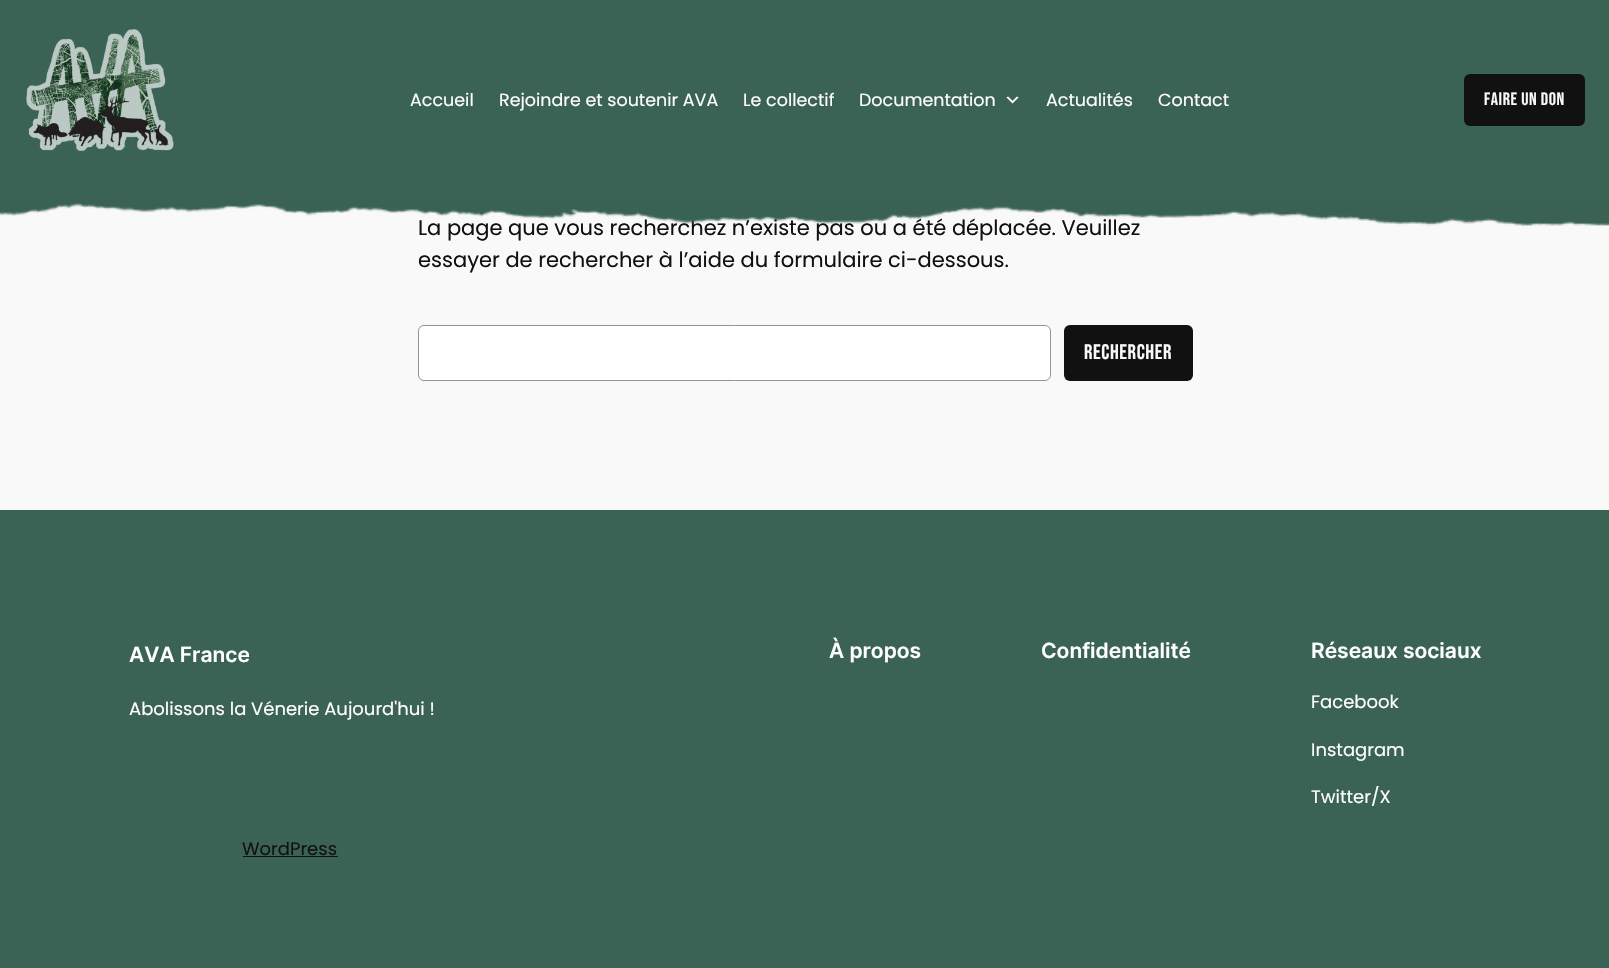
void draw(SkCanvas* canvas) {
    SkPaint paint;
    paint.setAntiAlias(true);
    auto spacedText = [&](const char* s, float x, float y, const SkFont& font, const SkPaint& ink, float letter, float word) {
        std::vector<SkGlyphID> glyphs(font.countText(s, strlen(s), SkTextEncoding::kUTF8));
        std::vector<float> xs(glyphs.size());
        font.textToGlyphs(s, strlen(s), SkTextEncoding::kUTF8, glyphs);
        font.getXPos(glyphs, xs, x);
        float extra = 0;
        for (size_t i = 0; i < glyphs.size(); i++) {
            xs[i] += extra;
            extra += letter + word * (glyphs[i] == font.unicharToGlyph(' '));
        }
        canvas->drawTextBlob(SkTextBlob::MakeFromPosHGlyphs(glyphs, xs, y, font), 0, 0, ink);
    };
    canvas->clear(0xFFF9F9F9);
    paint.setColor(0xFF3A6255);
    canvas->drawRect(SkRect::MakeXYWH(0, 0, 1609, 200), paint);
    canvas->drawImageRect(SkImages::DeferredFromEncodedData(SkData::MakeFromFileName("img1.png")), SkRect::MakeXYWH(26, 29, 148, 122), SkSamplingOptions());
    SkFont font1(fontMgr->matchFamilyStyle("Poppins", SkFontStyle::Normal()), 17.5f);
    font1.setSubpixel(true);
    paint.setColor(0xFFFFFFFF);
    canvas->drawString("Accueil", 410, 106, font1, paint);
    canvas->drawString("Rejoindre et soutenir AVA", 499, 106, font1, paint);
    canvas->drawString("Le collectif", 743, 106, font1, paint);
    canvas->drawString("Documentation", 859, 106, font1, paint);
    canvas->drawImageRect(SkImages::DeferredFromEncodedData(SkData::MakeFromFileName("img2.png")), SkRect::MakeXYWH(1006, 96, 13, 8), SkSamplingOptions());
    canvas->drawString("Actualités", 1046, 106, font1, paint);
    canvas->drawString("Contact", 1158, 106, font1, paint);
    paint.setColor(0xFF111111);
    canvas->drawRoundRect(SkRect::MakeXYWH(1464, 74, 121, 52), 6, 6, paint);
    SkFont font2(fontMgr->matchFamilyStyle("Bebas Neue", SkFontStyle::Normal()), 18);
    font2.setSubpixel(true);
    paint.setColor(0xFFF9F9F9);
    spacedText("faire un don", 1484, 105, font2, paint, 0.6f, 0);
    SkFont font3(fontMgr->matchFamilyStyle("Poppins", SkFontStyle::Normal()), 21);
    font3.setSubpixel(true);
    paint.setColor(0xFF111111);
    canvas->drawString("La page que vous recherchez n’existe pas ou a été déplacée. Veuillez", 418, 235, font3, paint);
    canvas->drawImageRect(SkImages::DeferredFromEncodedData(SkData::MakeFromFileName("img3.png")), SkRect::MakeXYWH(0, 200, 1609, 27), SkSamplingOptions());
    canvas->drawString("essayer de rechercher à l’aide du formulaire ci-dessous.", 418, 267, font3, paint);
    paint.setColor(0xFFFFFFFF);
    canvas->drawRoundRect(SkRect::MakeXYWH(418.5f, 325.5f, 632, 55), 5.5f, 5.5f, paint);
    paint.setStyle(SkPaint::kStroke_Style);
    paint.setStrokeWidth(1);
    paint.setColor(0xFF949494);
    canvas->drawRoundRect(SkRect::MakeXYWH(418.5f, 325.5f, 632, 55), 5.5f, 5.5f, paint);
    paint.setStyle(SkPaint::kFill_Style);
    paint.setColor(0xFF111111);
    canvas->drawRoundRect(SkRect::MakeXYWH(1064, 325, 129, 56), 6, 6, paint);
    SkFont font4(fontMgr->matchFamilyStyle("Bebas Neue", SkFontStyle::Normal()), 21);
    font4.setSubpixel(true);
    paint.setColor(0xFFF9F9F9);
    spacedText("Rechercher", 1084, 359, font4, paint, 0.6f, 0);
    paint.setColor(0xFF3A6255);
    canvas->drawRect(SkRect::MakeXYWH(0, 510, 1609, 458), paint);
    SkFont font5(fontMgr->matchFamilyStyle("Inter", SkFontStyle(600, SkFontStyle::kNormal_Width, SkFontStyle::kUpright_Slant)), 21);
    font5.setSubpixel(true);
    paint.setColor(0xFFFFFFFF);
    canvas->drawString("AVA France", 129, 662, font5, paint);
    SkFont font6(fontMgr->matchFamilyStyle("Poppins", SkFontStyle::Normal()), 18);
    font6.setSubpixel(true);
    canvas->drawString("Abolissons la Vénerie Aujourd'hui !", 129, 715, font6, paint);
    canvas->drawString("À propos", 829, 658, font5, paint);
    canvas->drawString("Confidentialité", 1041, 658, font5, paint);
    canvas->drawString("Réseaux sociaux", 1311, 658, font5, paint);
    canvas->drawString("Facebook", 1311, 708, font6, paint);
    canvas->drawString("Instagram", 1311, 756, font6, paint);
    canvas->drawString("Twitter/X", 1311, 803, font6, paint);
    paint.setColor(0xFF111111);
    canvas->drawString("WordPress", 242, 855, font6, paint);
    canvas->drawRect(SkRect::MakeXYWH(243, 856, 95, 1), paint);
}
